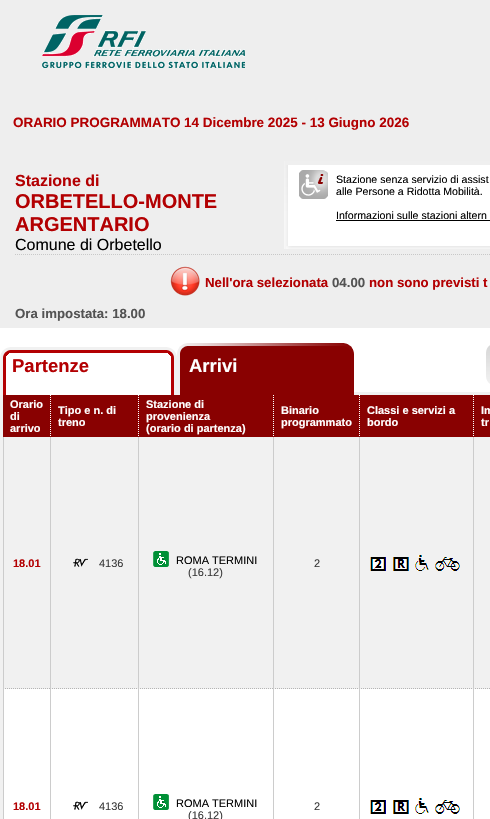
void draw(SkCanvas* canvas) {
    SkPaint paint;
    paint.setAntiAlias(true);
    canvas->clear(0xFFFFFFFF);
    paint.setColor(0xFFEEEEEE);
    canvas->drawRect(SkRect::MakeXYWH(0, 0, 490, 328), paint);
    canvas->drawImageRect(SkImages::DeferredFromEncodedData(SkData::MakeFromFileName("img1.png")), SkRect::MakeXYWH(42, 15, 203, 53), SkSamplingOptions());
    SkFont font1(fontMgr->matchFamilyStyle("Liberation Sans", SkFontStyle::Bold()), 13.45f);
    font1.setSubpixel(true);
    paint.setColor(0xFFB30002);
    canvas->drawString("ORARIO PROGRAMMATO 14 Dicembre 2025 - 13 Giugno 2026", 13, 127, font1, paint);
    paint.setStyle(SkPaint::kStroke_Style);
    paint.setStrokeWidth(1);
    paint.setColor(0xFFC8C8C8);
    paint.setPathEffect(SkDashPathEffect::Make({{1, 1}}, 0));
    canvas->drawPath(SkPathBuilder().moveTo(15, 254.5f).lineTo(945, 254.5f).detach(), paint);
    paint.setPathEffect(nullptr);
    SkFont font2(fontMgr->matchFamilyStyle("Liberation Sans", SkFontStyle::Bold()), 16);
    font2.setSubpixel(true);
    paint.setStyle(SkPaint::kFill_Style);
    paint.setColor(0xFFB30002);
    canvas->drawString("Stazione di", 15, 186, font2, paint);
    SkFont font3(fontMgr->matchFamilyStyle("Liberation Sans", SkFontStyle::Bold()), 20);
    font3.setSubpixel(true);
    canvas->drawString("ORBETELLO-MONTE", 15, 208, font3, paint);
    canvas->drawString("ARGENTARIO", 15, 231, font3, paint);
    SkFont font4(fontMgr->matchFamilyStyle("Liberation Sans", SkFontStyle::Normal()), 16);
    font4.setSubpixel(true);
    paint.setColor(0xFF000000);
    canvas->drawString("Comune di Orbetello", 15, 250, font4, paint);
    canvas->drawImageRect(SkImages::DeferredFromEncodedData(SkData::MakeFromFileName("img2.png")), SkRect::MakeXYWH(284, 161, 206, 88), SkSamplingOptions());
    paint.setColor(0xFFEFEFEF);
    canvas->drawRect(SkRect::MakeXYWH(286, 161, 204, 4), paint);
    canvas->drawImageRect(SkImages::DeferredFromEncodedData(SkData::MakeFromFileName("img3.png")), SkRect::MakeXYWH(286, 246, 204, 3), SkSamplingOptions());
    canvas->drawImageRect(SkImages::DeferredFromEncodedData(SkData::MakeFromFileName("img4.png")), SkRect::MakeXYWH(299, 170, 29, 29), SkSamplingOptions());
    SkFont font5(fontMgr->matchFamilyStyle("Liberation Sans", SkFontStyle::Normal()), 10.6f);
    font5.setSubpixel(true);
    paint.setColor(0xFF000000);
    canvas->drawString("Stazione senza servizio di assist", 336, 183, font5, paint);
    canvas->drawString("alle Persone a Ridotta Mobilità.", 336, 195, font5, paint);
    canvas->drawString("Informazioni sulle stazioni altern", 336, 219, font5, paint);
    canvas->drawRect(SkRect::MakeXYWH(336, 220, 154, 1), paint);
    canvas->drawImageRect(SkImages::DeferredFromEncodedData(SkData::MakeFromFileName("img5.png")), SkRect::MakeXYWH(170, 266, 30, 30), SkSamplingOptions());
    SkFont font6(fontMgr->matchFamilyStyle("Liberation Sans", SkFontStyle::Bold()), 13.25f);
    font6.setSubpixel(true);
    paint.setColor(0xFFB30002);
    canvas->drawString("Nell'ora selezionata", 205, 287, font6, paint);
    paint.setColor(0xFF535353);
    canvas->drawString("04.00", 332, 287, font6, paint);
    paint.setColor(0xFFB30002);
    canvas->drawString("non sono previsti t", 369, 287, font6, paint);
    paint.setColor(0xFF535353);
    canvas->drawString("Ora impostata: 18.00", 15, 318, font6, paint);
    paint.setColor(0xFFF1F1F1);
    canvas->drawRect(SkRect::MakeXYWH(354, 392, 136, 3), paint);
    canvas->drawImageRect(SkImages::DeferredFromEncodedData(SkData::MakeFromFileName("img6.png")), SkRect::MakeXYWH(0, 347, 177, 48), SkSamplingOptions());
    SkFont font7(fontMgr->matchFamilyStyle("Liberation Sans", SkFontStyle::Bold()), 18.5f);
    font7.setSubpixel(true);
    paint.setColor(0xFFB30002);
    canvas->drawString("Partenze", 12, 372, font7, paint);
    canvas->drawImageRect(SkImages::DeferredFromEncodedData(SkData::MakeFromFileName("img7.png")), SkRect::MakeXYWH(177, 343, 177, 52), SkSamplingOptions());
    paint.setColor(0xFFFFFFFF);
    canvas->drawString("Arrivi", 189, 372, font7, paint);
    canvas->drawImageRect(SkImages::DeferredFromEncodedData(SkData::MakeFromFileName("img8.png")), SkRect::MakeXYWH(486, 345, 4, 32), SkSamplingOptions());
    canvas->drawImageRect(SkImages::DeferredFromEncodedData(SkData::MakeFromFileName("img9.png")), SkRect::MakeXYWH(486, 377, 4, 7), SkSamplingOptions());
    paint.setColor(0xFFF1F1F1);
    canvas->drawRect(SkRect::MakeXYWH(0, 395, 490, 424), paint);
    paint.setColor(0xFF890101);
    canvas->drawRect(SkRect::MakeXYWH(3, 395, 487, 42), paint);
    paint.setStyle(SkPaint::kStroke_Style);
    paint.setColor(0xFFFFFFFF);
    paint.setPathEffect(SkDashPathEffect::Make({{1, 1}}, 0));
    canvas->drawPath(SkPathBuilder().moveTo(50.5f, 395).lineTo(50.5f, 437).detach(), paint);
    paint.setPathEffect(nullptr);
    SkFont font8(fontMgr->matchFamilyStyle("Liberation Sans", SkFontStyle::Bold()), 11);
    font8.setSubpixel(true);
    paint.setStyle(SkPaint::kFill_Style);
    canvas->drawString("Orario", 10, 408, font8, paint);
    canvas->drawString("di", 10, 420, font8, paint);
    canvas->drawString("arrivo", 10, 432, font8, paint);
    paint.setStyle(SkPaint::kStroke_Style);
    paint.setPathEffect(SkDashPathEffect::Make({{1, 1}}, 0));
    canvas->drawPath(SkPathBuilder().moveTo(138.5f, 395).lineTo(138.5f, 437).detach(), paint);
    paint.setPathEffect(nullptr);
    paint.setStyle(SkPaint::kFill_Style);
    canvas->drawString("Tipo e n. di", 58, 414, font8, paint);
    canvas->drawString("treno", 58, 426, font8, paint);
    paint.setStyle(SkPaint::kStroke_Style);
    paint.setPathEffect(SkDashPathEffect::Make({{1, 1}}, 0));
    canvas->drawPath(SkPathBuilder().moveTo(273.5f, 395).lineTo(273.5f, 437).detach(), paint);
    paint.setPathEffect(nullptr);
    paint.setStyle(SkPaint::kFill_Style);
    canvas->drawString("Stazione di", 146, 408, font8, paint);
    canvas->drawString("provenienza", 146, 420, font8, paint);
    canvas->drawString("(orario di partenza)", 146, 432, font8, paint);
    paint.setStyle(SkPaint::kStroke_Style);
    paint.setPathEffect(SkDashPathEffect::Make({{1, 1}}, 0));
    canvas->drawPath(SkPathBuilder().moveTo(359.5f, 395).lineTo(359.5f, 437).detach(), paint);
    paint.setPathEffect(nullptr);
    paint.setStyle(SkPaint::kFill_Style);
    canvas->drawString("Binario", 281, 414, font8, paint);
    canvas->drawString("programmato", 281, 426, font8, paint);
    paint.setStyle(SkPaint::kStroke_Style);
    paint.setPathEffect(SkDashPathEffect::Make({{1, 1}}, 0));
    canvas->drawPath(SkPathBuilder().moveTo(473.5f, 395).lineTo(473.5f, 437).detach(), paint);
    paint.setPathEffect(nullptr);
    paint.setStyle(SkPaint::kFill_Style);
    canvas->drawString("Classi e servizi a", 367, 414, font8, paint);
    canvas->drawString("bordo", 367, 426, font8, paint);
    canvas->drawString("Im", 481, 414, font8, paint);
    canvas->drawString("tr", 481, 426, font8, paint);
    canvas->drawImageRect(SkImages::DeferredFromEncodedData(SkData::MakeFromFileName("img10.png")), SkRect::MakeXYWH(5, 688, 45, 1), SkSamplingOptions());
    paint.setColor(0xFFCCCCCC);
    canvas->drawRect(SkRect::MakeXYWH(50, 437, 1, 382), paint);
    canvas->drawRect(SkRect::MakeXYWH(3, 437, 1, 382), paint);
    paint.setColor(0xFFB30002);
    canvas->drawString("18.01", 13, 567, font8, paint);
    canvas->drawImageRect(SkImages::DeferredFromEncodedData(SkData::MakeFromFileName("img11.png")), SkRect::MakeXYWH(52, 688, 85, 1), SkSamplingOptions());
    paint.setColor(0xFFCCCCCC);
    canvas->drawRect(SkRect::MakeXYWH(138, 437, 1, 382), paint);
    canvas->drawImageRect(SkImages::DeferredFromEncodedData(SkData::MakeFromFileName("img12.png")), SkRect::MakeXYWH(73, 558, 15, 9), SkSamplingOptions());
    SkFont font9(fontMgr->matchFamilyStyle("Liberation Sans", SkFontStyle::Normal()), 11);
    font9.setSubpixel(true);
    paint.setColor(0xFF3C3C3C);
    canvas->drawString("4136", 99, 567, font9, paint);
    canvas->drawImageRect(SkImages::DeferredFromEncodedData(SkData::MakeFromFileName("img13.png")), SkRect::MakeXYWH(140, 688, 133, 1), SkSamplingOptions());
    paint.setColor(0xFFCCCCCC);
    canvas->drawRect(SkRect::MakeXYWH(273, 437, 1, 382), paint);
    canvas->drawImageRect(SkImages::DeferredFromEncodedData(SkData::MakeFromFileName("img14.png")), SkRect::MakeXYWH(153, 551, 16, 16), SkSamplingOptions());
    paint.setColor(0xFF000000);
    canvas->drawString("ROMA TERMINI", 176, 564, font9, paint);
    paint.setColor(0xFF3C3C3C);
    canvas->drawString("(16.12)", 188, 576, font9, paint);
    canvas->drawImageRect(SkImages::DeferredFromEncodedData(SkData::MakeFromFileName("img15.png")), SkRect::MakeXYWH(275, 688, 83, 1), SkSamplingOptions());
    paint.setColor(0xFFCCCCCC);
    canvas->drawRect(SkRect::MakeXYWH(359, 437, 1, 382), paint);
    paint.setColor(0xFF3C3C3C);
    canvas->drawString("2", 314, 567, font9, paint);
    canvas->drawImageRect(SkImages::DeferredFromEncodedData(SkData::MakeFromFileName("img16.png")), SkRect::MakeXYWH(361, 688, 111, 1), SkSamplingOptions());
    paint.setColor(0xFFCCCCCC);
    canvas->drawRect(SkRect::MakeXYWH(473, 437, 1, 382), paint);
    canvas->drawImageRect(SkImages::DeferredFromEncodedData(SkData::MakeFromFileName("img17.png")), SkRect::MakeXYWH(370, 557, 16, 14), SkSamplingOptions());
    canvas->drawImageRect(SkImages::DeferredFromEncodedData(SkData::MakeFromFileName("img18.png")), SkRect::MakeXYWH(393, 557, 16, 14), SkSamplingOptions());
    canvas->drawImageRect(SkImages::DeferredFromEncodedData(SkData::MakeFromFileName("img19.png")), SkRect::MakeXYWH(415, 555, 14, 16), SkSamplingOptions());
    canvas->drawImageRect(SkImages::DeferredFromEncodedData(SkData::MakeFromFileName("img20.png")), SkRect::MakeXYWH(435, 557, 25, 14), SkSamplingOptions());
    canvas->drawImageRect(SkImages::DeferredFromEncodedData(SkData::MakeFromFileName("img21.png")), SkRect::MakeXYWH(475, 688, 15, 1), SkSamplingOptions());
    paint.setColor(0xFFFFFFFF);
    canvas->drawRect(SkRect::MakeXYWH(4, 689, 46, 130), paint);
    paint.setColor(0xFFB30002);
    canvas->drawString("18.01", 13, 810, font8, paint);
    paint.setColor(0xFFFFFFFF);
    canvas->drawRect(SkRect::MakeXYWH(51, 689, 87, 130), paint);
    canvas->drawImageRect(SkImages::DeferredFromEncodedData(SkData::MakeFromFileName("img22.png")), SkRect::MakeXYWH(73, 801, 15, 9), SkSamplingOptions());
    paint.setColor(0xFF3C3C3C);
    canvas->drawString("4136", 99, 810, font9, paint);
    paint.setColor(0xFFFFFFFF);
    canvas->drawRect(SkRect::MakeXYWH(139, 689, 134, 130), paint);
    canvas->drawImageRect(SkImages::DeferredFromEncodedData(SkData::MakeFromFileName("img14.png")), SkRect::MakeXYWH(153, 794, 16, 16), SkSamplingOptions());
    paint.setColor(0xFF000000);
    canvas->drawString("ROMA TERMINI", 176, 807, font9, paint);
    paint.setColor(0xFF3C3C3C);
    canvas->drawString("(16.12)", 188, 819, font9, paint);
    paint.setColor(0xFFFFFFFF);
    canvas->drawRect(SkRect::MakeXYWH(274, 689, 85, 130), paint);
    paint.setColor(0xFF3C3C3C);
    canvas->drawString("2", 314, 810, font9, paint);
    paint.setColor(0xFFFFFFFF);
    canvas->drawRect(SkRect::MakeXYWH(360, 689, 113, 130), paint);
    canvas->drawImageRect(SkImages::DeferredFromEncodedData(SkData::MakeFromFileName("img17.png")), SkRect::MakeXYWH(370, 800, 16, 14), SkSamplingOptions());
    canvas->drawImageRect(SkImages::DeferredFromEncodedData(SkData::MakeFromFileName("img18.png")), SkRect::MakeXYWH(393, 800, 16, 14), SkSamplingOptions());
    canvas->drawImageRect(SkImages::DeferredFromEncodedData(SkData::MakeFromFileName("img23.png")), SkRect::MakeXYWH(415, 798, 14, 16), SkSamplingOptions());
    canvas->drawImageRect(SkImages::DeferredFromEncodedData(SkData::MakeFromFileName("img24.png")), SkRect::MakeXYWH(435, 800, 25, 14), SkSamplingOptions());
    canvas->drawRect(SkRect::MakeXYWH(474, 689, 16, 130), paint);
}
